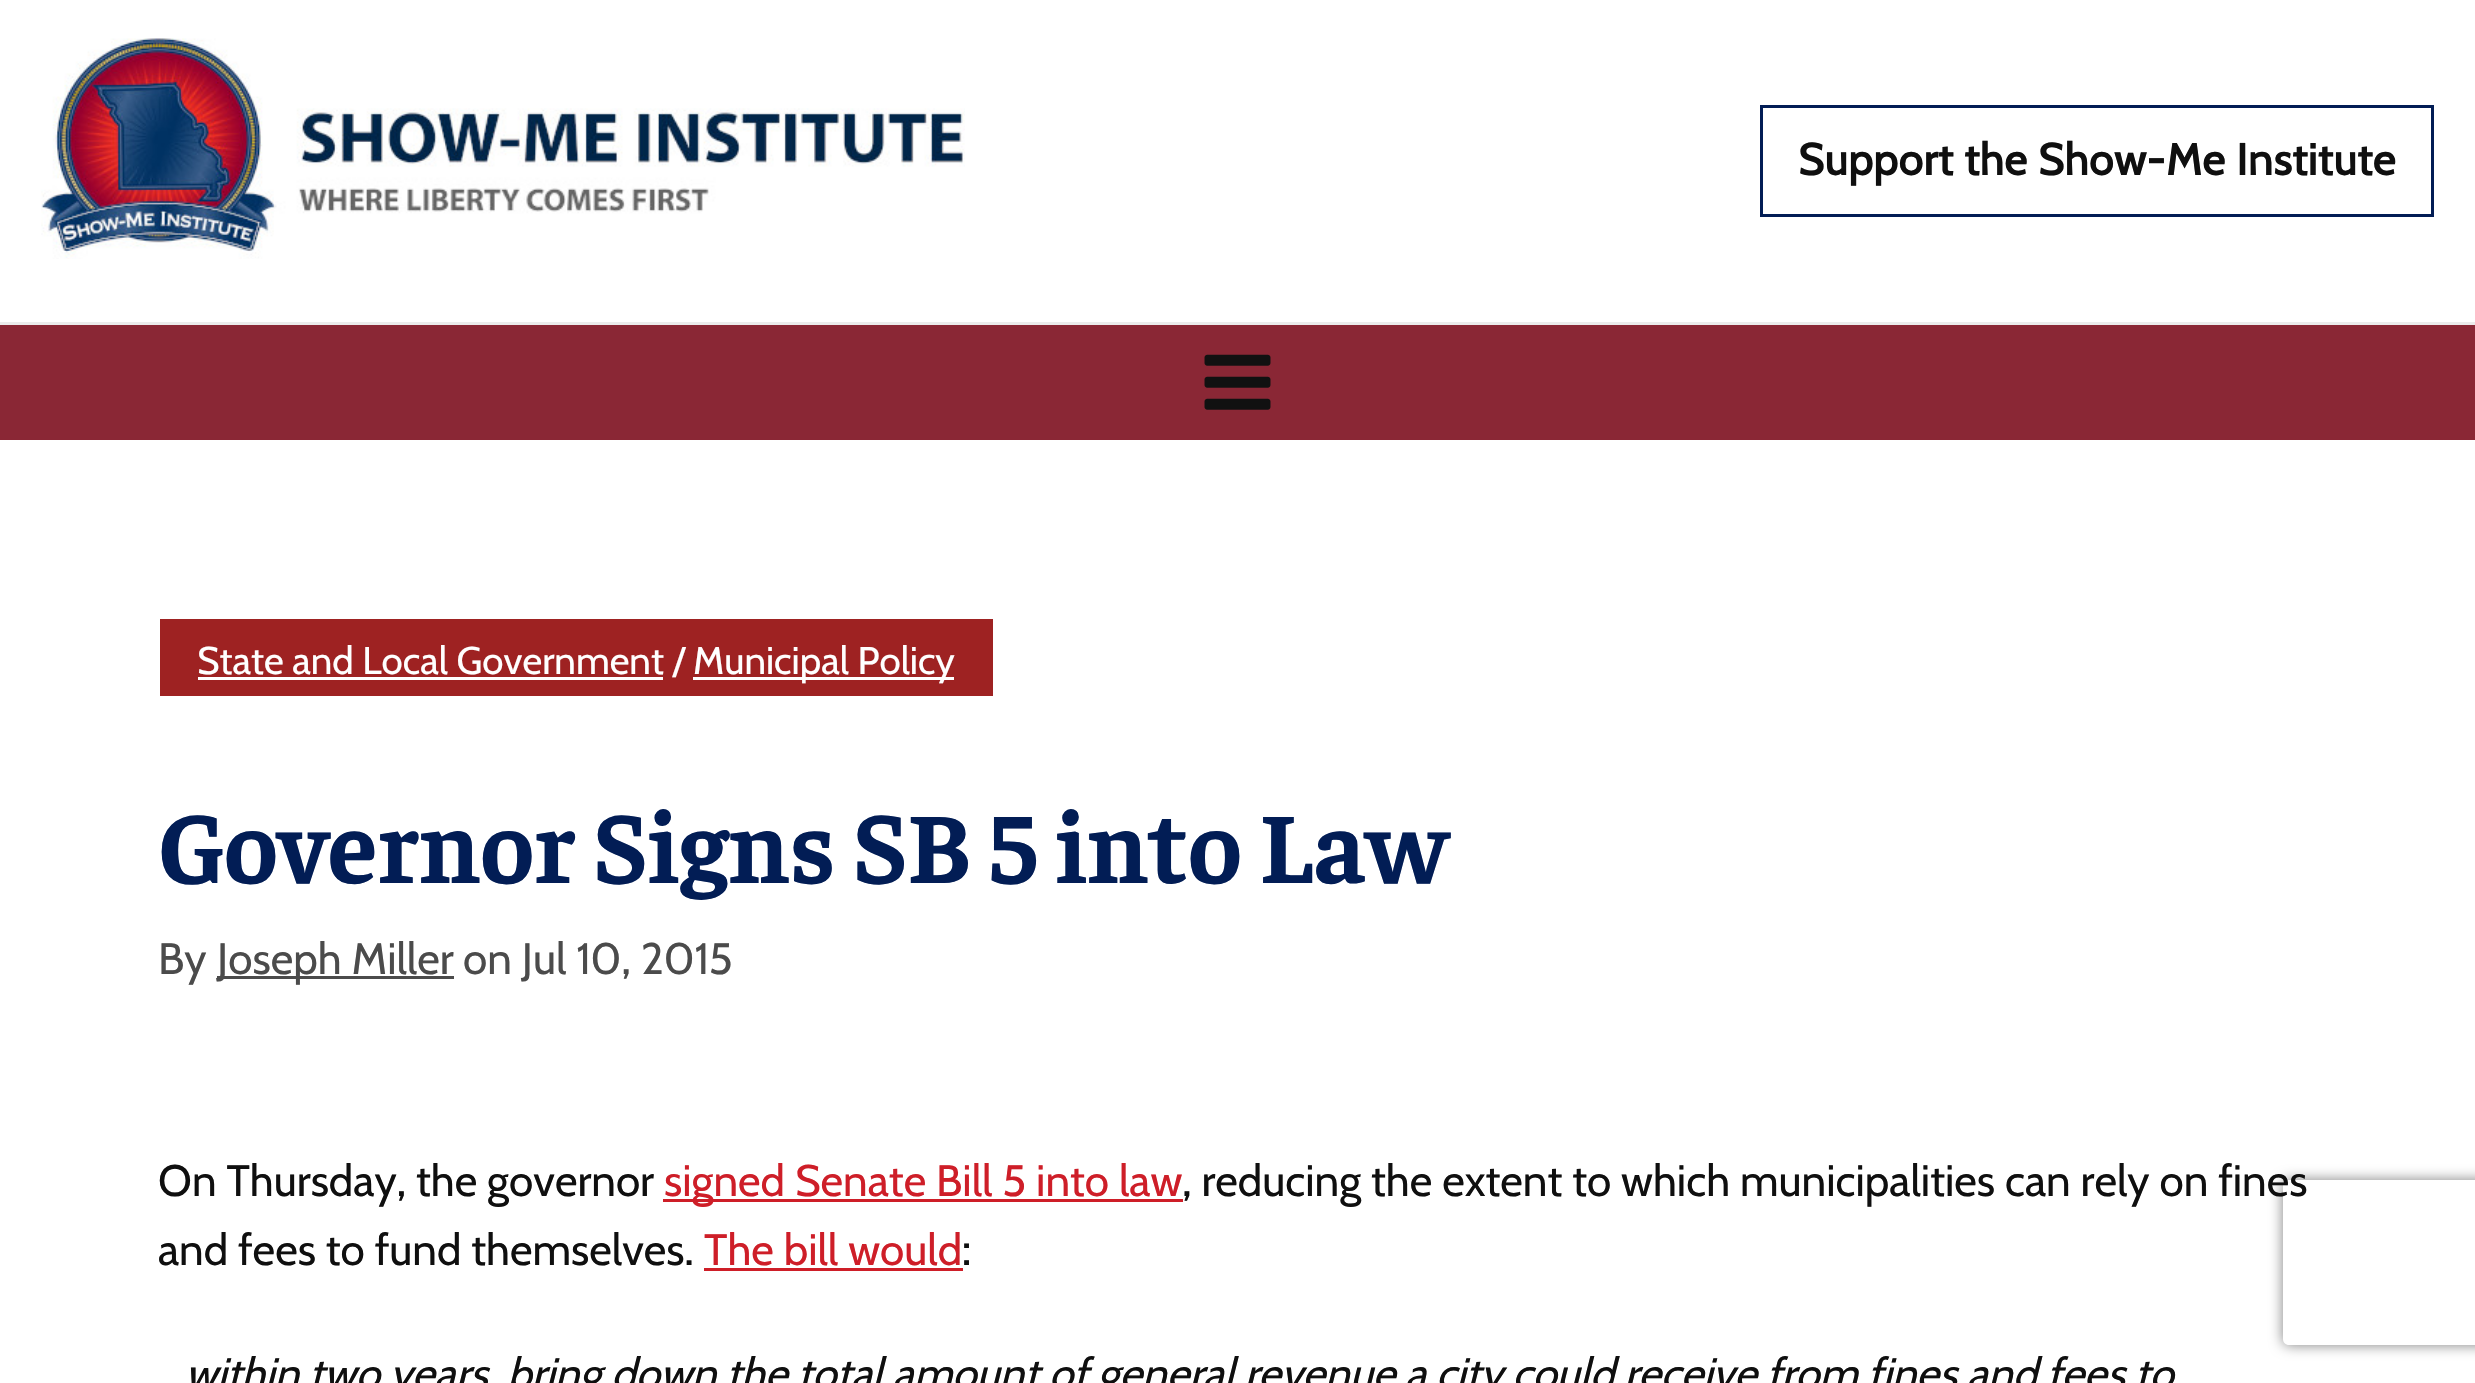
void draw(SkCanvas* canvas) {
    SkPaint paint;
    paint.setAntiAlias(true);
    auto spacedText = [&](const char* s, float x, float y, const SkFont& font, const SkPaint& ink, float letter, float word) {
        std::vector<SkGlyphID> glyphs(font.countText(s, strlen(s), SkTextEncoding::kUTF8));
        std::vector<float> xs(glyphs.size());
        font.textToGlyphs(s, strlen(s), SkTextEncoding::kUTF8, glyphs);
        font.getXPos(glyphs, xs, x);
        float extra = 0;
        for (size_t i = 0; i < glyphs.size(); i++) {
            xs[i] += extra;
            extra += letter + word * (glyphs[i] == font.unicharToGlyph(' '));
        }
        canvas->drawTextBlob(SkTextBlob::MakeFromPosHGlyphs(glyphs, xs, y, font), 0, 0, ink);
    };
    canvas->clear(0xFFFFFFFF);
    canvas->drawImageRect(SkImages::DeferredFromEncodedData(SkData::MakeFromFileName("img1.png")), SkRect::MakeXYWH(41, 38, 924, 221), SkSamplingOptions());
    paint.setStyle(SkPaint::kStroke_Style);
    paint.setStrokeWidth(3);
    paint.setColor(0xFF021D55);
    canvas->drawRect(SkRect::MakeXYWH(1761.5f, 106.5f, 671, 109), paint);
    SkFont font1(fontMgr->matchFamilyStyle("Cabin", SkFontStyle::Bold()), 44);
    font1.setSubpixel(true);
    paint.setStyle(SkPaint::kFill_Style);
    paint.setColor(0xFF0F0F0F);
    spacedText("Support the Show-Me Institute", 1798, 175, font1, paint, 0.7f, 0);
    paint.setColor(0xFFEBEBEB);
    canvas->drawRect(SkRect::MakeXYWH(0, 322, 2475, 3), paint);
    paint.setColor(0xFF8A2735);
    canvas->drawRect(SkRect::MakeXYWH(0, 325, 2475, 115), paint);
    canvas->drawImageRect(SkImages::DeferredFromEncodedData(SkData::MakeFromFileName("img2.png")), SkRect::MakeXYWH(1204, 354, 67, 56), SkSamplingOptions());
    paint.setColor(0xFF9E2222);
    canvas->drawRect(SkRect::MakeXYWH(160, 619, 833, 77), paint);
    paint.setColor(0xFFFFFFFF);
    canvas->drawRect(SkRect::MakeXYWH(198, 677, 465, 3), paint);
    SkFont font2(fontMgr->matchFamilyStyle("Cabin", SkFontStyle::Normal()), 38.5f);
    font2.setSubpixel(true);
    canvas->drawString("State and Local Government /", 197, 674, font2, paint);
    canvas->drawRect(SkRect::MakeXYWH(693, 677, 261, 3), paint);
    canvas->drawString("Municipal Policy", 693, 674, font2, paint);
    SkFont font3(fontMgr->matchFamilyStyle("Faustina", SkFontStyle::Bold()), 101.75f);
    font3.setSubpixel(true);
    paint.setColor(0xFF021D55);
    canvas->drawString("Governor Signs SB 5 into Law", 158, 883, font3, paint);
    SkFont font4(fontMgr->matchFamilyStyle("Cabin", SkFontStyle::Normal()), 44);
    font4.setSubpixel(true);
    paint.setColor(0xFF4B4B4B);
    canvas->drawString("By", 158, 974, font4, paint);
    canvas->drawRect(SkRect::MakeXYWH(217, 976, 237, 3), paint);
    canvas->drawString("Joseph Miller", 217, 974, font4, paint);
    canvas->drawString("on Jul 10, 2015", 463, 974, font4, paint);
    paint.setColor(0xFF0F0F0F);
    canvas->drawString("On Thursday, the governor", 158, 1196, font4, paint);
    paint.setColor(0xFFCE1E28);
    canvas->drawRect(SkRect::MakeXYWH(663, 1199, 520, 3), paint);
    canvas->drawString("signed Senate Bill 5 into law", 664, 1196, font4, paint);
    canvas->save();
    canvas->clipPath(SkPathBuilder(SkPathFillType::kEvenOdd).moveTo(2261, 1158).lineTo(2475, 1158).lineTo(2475, 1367).lineTo(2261, 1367).close().moveTo(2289, 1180).lineTo(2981, 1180).cubicTo(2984.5f, 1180, 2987, 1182.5f, 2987, 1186).lineTo(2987, 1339).cubicTo(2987, 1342.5f, 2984.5f, 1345, 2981, 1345).lineTo(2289, 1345).cubicTo(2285.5f, 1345, 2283, 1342.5f, 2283, 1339).lineTo(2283, 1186).cubicTo(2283, 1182.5f, 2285.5f, 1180, 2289, 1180).close().detach(), true);
    paint.setColor(0xFF808080);
    paint.setMaskFilter(SkMaskFilter::MakeBlur(kNormal_SkBlurStyle, 7));
    canvas->drawRoundRect(SkRect::MakeXYWH(2283, 1180, 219, 165), 6, 6, paint);
    paint.setMaskFilter(nullptr);
    canvas->restore();
    paint.setColor(0xFF0F0F0F);
    canvas->drawString(", reducing the extent to which municipalities can rely on fines", 1182, 1196, font4, paint);
    canvas->drawString("and fees to fund themselves.", 158, 1265, font4, paint);
    paint.setColor(0xFFCE1E28);
    canvas->drawString("The bill would", 704, 1265, font4, paint);
    canvas->drawRect(SkRect::MakeXYWH(704, 1268, 259, 3), paint);
    paint.setColor(0xFF0F0F0F);
    canvas->drawString(":", 962, 1265, font4, paint);
    SkFont font5(fontMgr->matchFamilyStyle("Cabin", SkFontStyle::Italic()), 44);
    font5.setSubpixel(true);
    canvas->drawString("within two years, bring down the total amount of general revenue a city could receive from fines and fees to", 185, 1389, font5, paint);
}
